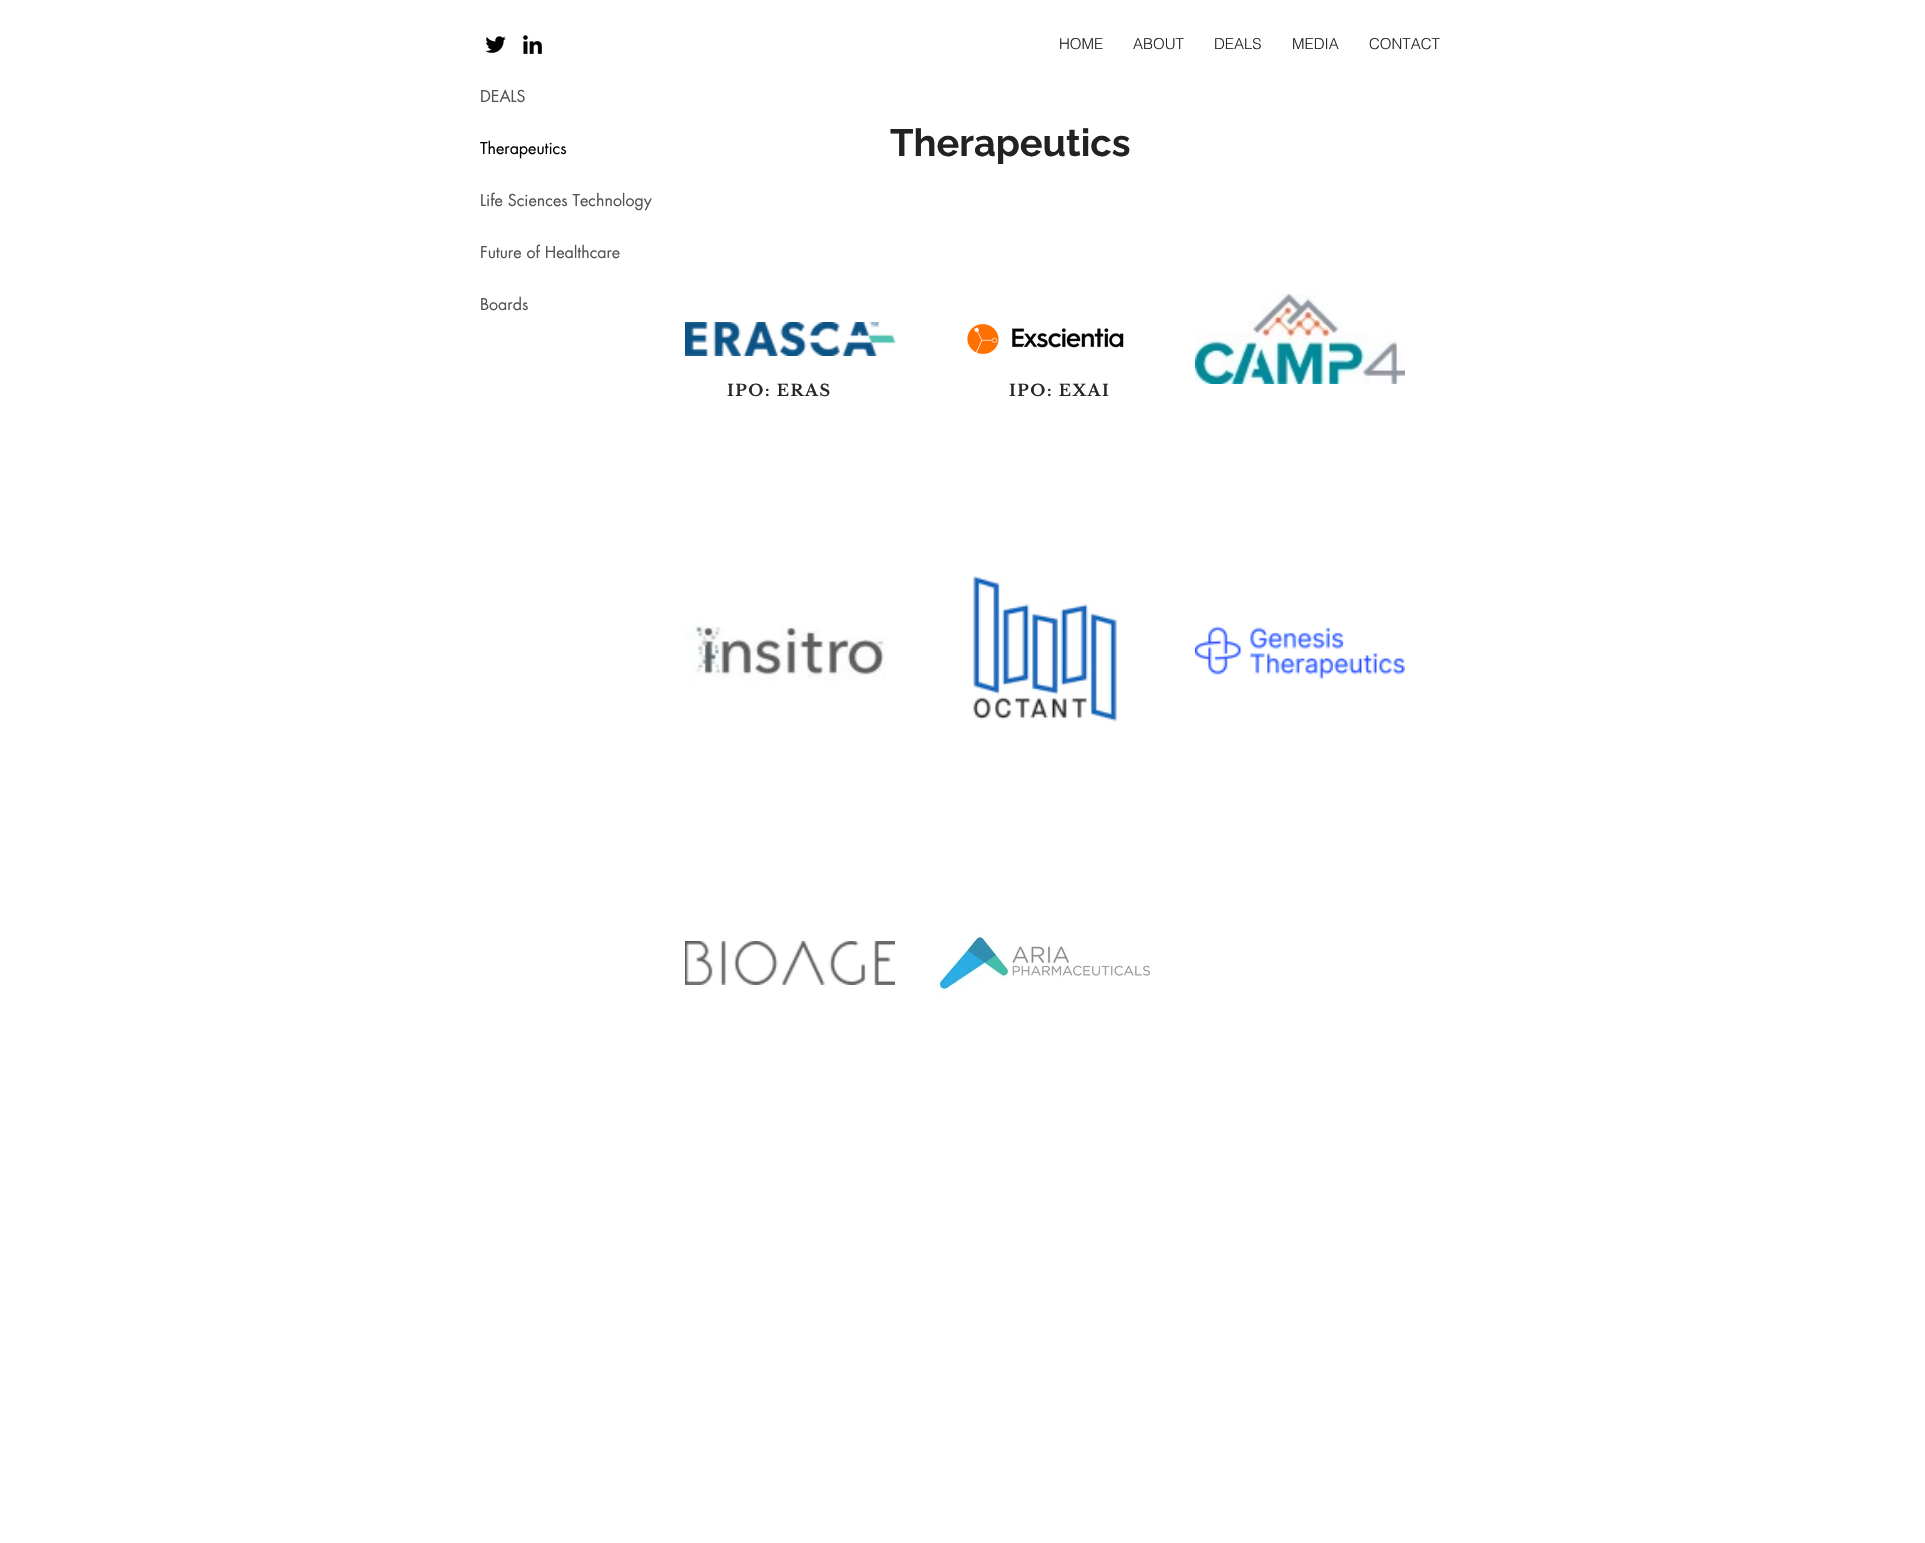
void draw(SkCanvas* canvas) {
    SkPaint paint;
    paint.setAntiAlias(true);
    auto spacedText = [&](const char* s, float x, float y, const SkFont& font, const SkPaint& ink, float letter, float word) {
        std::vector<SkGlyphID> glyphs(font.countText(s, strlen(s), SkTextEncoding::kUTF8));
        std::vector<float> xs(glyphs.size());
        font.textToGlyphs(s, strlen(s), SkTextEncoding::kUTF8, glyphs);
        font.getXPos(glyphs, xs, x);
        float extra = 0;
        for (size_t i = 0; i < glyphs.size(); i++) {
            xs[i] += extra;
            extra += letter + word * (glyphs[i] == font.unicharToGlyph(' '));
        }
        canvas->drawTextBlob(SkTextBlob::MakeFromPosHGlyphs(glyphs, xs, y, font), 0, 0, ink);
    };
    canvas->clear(0xFFFFFFFF);
    canvas->drawImageRect(SkImages::DeferredFromEncodedData(SkData::MakeFromFileName("img1.png")), SkRect::MakeXYWH(485, 36, 21, 17), SkSamplingOptions());
    canvas->drawImageRect(SkImages::DeferredFromEncodedData(SkData::MakeFromFileName("img2.png")), SkRect::MakeXYWH(523, 35, 20, 20), SkSamplingOptions());
    SkFont font1(fontMgr->matchFamilyStyle("helvetica", SkFontStyle(300, SkFontStyle::kNormal_Width, SkFontStyle::kUpright_Slant)), 15);
    font1.setSubpixel(true);
    paint.setColor(0xFF222222);
    canvas->drawString("HOME", 1059, 49, font1, paint);
    canvas->drawString("ABOUT", 1133, 49, font1, paint);
    canvas->drawString("DEALS", 1214, 49, font1, paint);
    canvas->drawString("MEDIA", 1292, 49, font1, paint);
    canvas->drawString("CONTACT", 1369, 49, font1, paint);
    SkFont font2(fontMgr->matchFamilyStyle("futura", SkFontStyle::Normal()), 16);
    font2.setSubpixel(true);
    paint.setColor(0xFF555252);
    canvas->drawString("DEALS", 480, 102, font2, paint);
    paint.setColor(0xFF000000);
    canvas->drawString("Therapeutics", 480, 154, font2, paint);
    paint.setColor(0xFF555252);
    canvas->drawString("Life Sciences Technology", 480, 206, font2, paint);
    canvas->drawString("Future of Healthcare", 480, 258, font2, paint);
    canvas->drawString("Boards", 480, 310, font2, paint);
    SkFont font3(fontMgr->matchFamilyStyle("Raleway", SkFontStyle::Bold()), 38);
    font3.setSubpixel(true);
    paint.setColor(0xFF222222);
    canvas->drawString("Therapeutics", 890, 156, font3, paint);
    canvas->drawImageRect(SkImages::DeferredFromEncodedData(SkData::MakeFromFileName("img3.png")), SkRect::MakeXYWH(685, 322, 210, 34), SkSamplingOptions());
    canvas->drawImageRect(SkImages::DeferredFromEncodedData(SkData::MakeFromFileName("img4.png")), SkRect::MakeXYWH(967, 324, 157, 31), SkSamplingOptions());
    canvas->drawImageRect(SkImages::DeferredFromEncodedData(SkData::MakeFromFileName("img5.png")), SkRect::MakeXYWH(1195, 294, 210, 90), SkSamplingOptions());
    canvas->drawImageRect(SkImages::DeferredFromEncodedData(SkData::MakeFromFileName("img6.png")), SkRect::MakeXYWH(685, 613, 210, 76), SkSamplingOptions());
    canvas->drawImageRect(SkImages::DeferredFromEncodedData(SkData::MakeFromFileName("img7.png")), SkRect::MakeXYWH(973, 576, 145, 146), SkSamplingOptions());
    canvas->drawImageRect(SkImages::DeferredFromEncodedData(SkData::MakeFromFileName("img8.png")), SkRect::MakeXYWH(1195, 626, 210, 53), SkSamplingOptions());
    canvas->drawImageRect(SkImages::DeferredFromEncodedData(SkData::MakeFromFileName("img9.png")), SkRect::MakeXYWH(685, 941, 210, 44), SkSamplingOptions());
    canvas->drawImageRect(SkImages::DeferredFromEncodedData(SkData::MakeFromFileName("img10.png")), SkRect::MakeXYWH(940, 908, 210, 110), SkSamplingOptions());
    SkFont font4(fontMgr->matchFamilyStyle("Libre Baskerville", SkFontStyle::Bold()), 16);
    font4.setSubpixel(true);
    paint.setColor(0xFF292929);
    spacedText("IPO: ERAS", 727, 396, font4, paint, 1.5f, 0);
    spacedText("IPO: EXAI", 1009, 396, font4, paint, 1.5f, 0);
}
